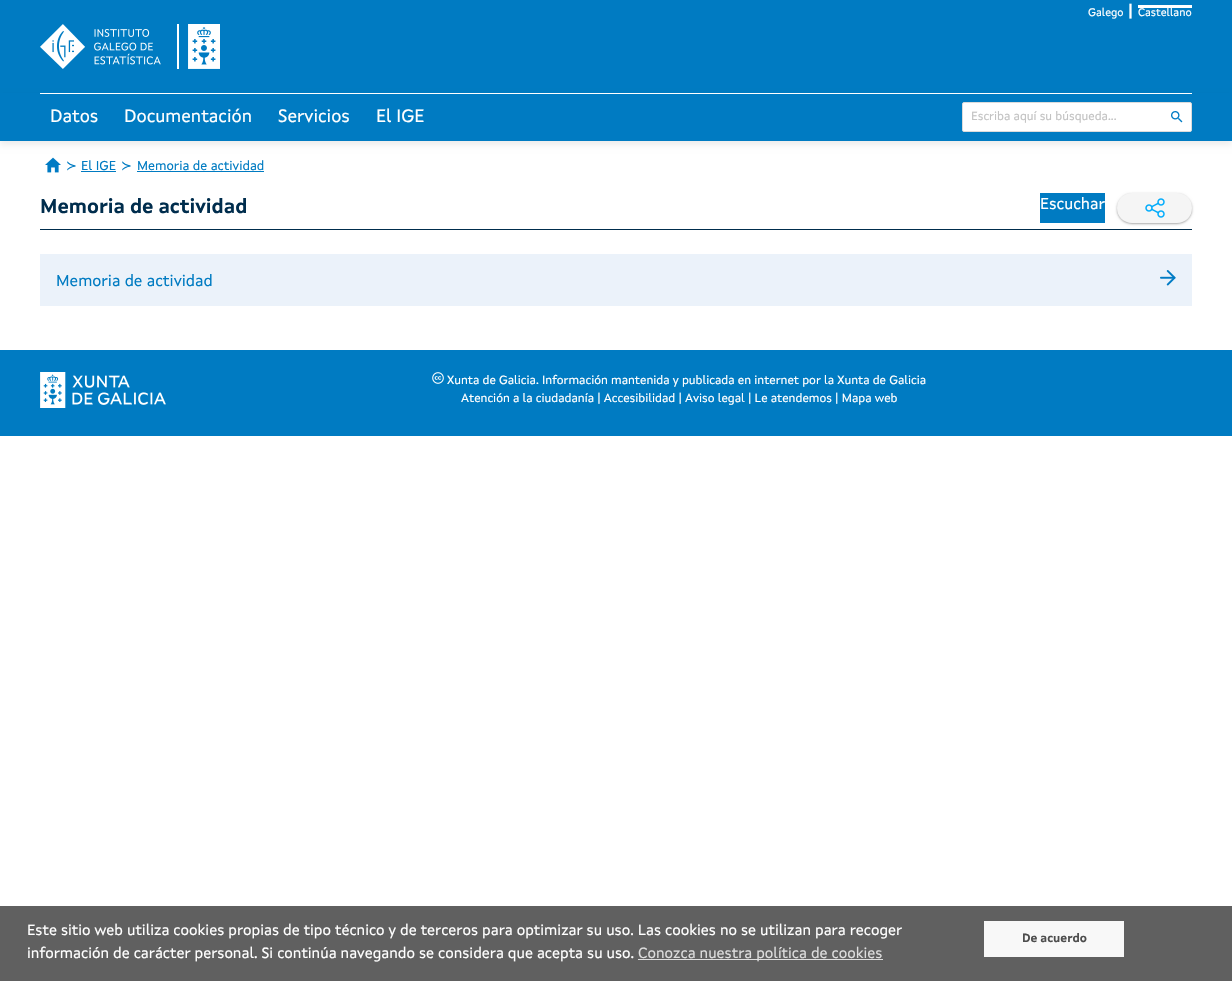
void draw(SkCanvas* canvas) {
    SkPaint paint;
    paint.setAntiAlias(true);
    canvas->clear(0xFFFFFFFF);
    paint.setColor(0xFF007BC2);
    canvas->drawRect(SkRect::MakeXYWH(0, 0, 1232, 93), paint);
    SkFont font1(fontMgr->matchFamilyStyle("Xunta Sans", SkFontStyle::Normal()), 11);
    font1.setSubpixel(true);
    paint.setColor(0xFFFFFFFF);
    canvas->drawString("Galego", 1088, 16, font1, paint);
    SkFont font2(fontMgr->matchFamilyStyle("Xunta Sans", SkFontStyle::Bold()), 16);
    font2.setSubpixel(true);
    canvas->drawString("|", 1128, 16, font2, paint);
    canvas->drawRect(SkRect::MakeXYWH(1138, 5, 54, 3), paint);
    canvas->drawString("Castellano", 1138, 16, font1, paint);
    canvas->drawImageRect(SkImages::DeferredFromEncodedData(SkData::MakeFromFileName("img1.png")), SkRect::MakeXYWH(40, 24, 180, 45), SkSamplingOptions());
    paint.setColor(0x12000000);
    paint.setMaskFilter(SkMaskFilter::MakeBlur(kNormal_SkBlurStyle, 3));
    canvas->drawRect(SkRect::MakeXYWH(0, 97, 1232, 48), paint);
    paint.setMaskFilter(nullptr);
    paint.setColor(0xFF007BC2);
    canvas->drawRect(SkRect::MakeXYWH(0, 93, 1232, 48), paint);
    paint.setColor(0xFFFFFFFF);
    canvas->drawRect(SkRect::MakeXYWH(40, 93, 1152, 1), paint);
    SkFont font3(fontMgr->matchFamilyStyle("Xunta Sans", SkFontStyle::Normal()), 18);
    font3.setSubpixel(true);
    canvas->drawString("Datos", 50, 122, font3, paint);
    canvas->drawString("Documentación", 124, 122, font3, paint);
    canvas->drawString("Servicios", 278, 122, font3, paint);
    canvas->drawString("El IGE", 376, 122, font3, paint);
    canvas->drawRoundRect(SkRect::MakeXYWH(962.5f, 102.5f, 229, 29), 1.5f, 1.5f, paint);
    paint.setStyle(SkPaint::kStroke_Style);
    paint.setStrokeWidth(1);
    paint.setColor(0xFFDBDBDB);
    canvas->drawRoundRect(SkRect::MakeXYWH(962.5f, 102.5f, 229, 29), 1.5f, 1.5f, paint);
    SkFont font4(fontMgr->matchFamilyStyle("Xunta Sans", SkFontStyle::Normal()), 12);
    font4.setSubpixel(true);
    paint.setStyle(SkPaint::kFill_Style);
    paint.setColor(0xFFC3C3C3);
    canvas->drawString("Escriba aquí su búsqueda...", 971, 120, font4, paint);
    canvas->drawImageRect(SkImages::DeferredFromEncodedData(SkData::MakeFromFileName("img2.png")), SkRect::MakeXYWH(1171, 111, 12, 12), SkSamplingOptions());
    canvas->drawImageRect(SkImages::DeferredFromEncodedData(SkData::MakeFromFileName("img3.png")), SkRect::MakeXYWH(45, 157, 16, 16), SkSamplingOptions());
    SkFont font5(fontMgr->matchFamilyStyle("DejaVu Sans", SkFontStyle::Normal()), 13);
    font5.setSubpixel(true);
    paint.setColor(0xFF007BC2);
    canvas->drawString("≻", 66, 170, font5, paint);
    SkFont font6(fontMgr->matchFamilyStyle("Xunta Sans", SkFontStyle::Normal()), 13);
    font6.setSubpixel(true);
    canvas->drawString("El IGE", 81, 170, font6, paint);
    canvas->drawRect(SkRect::MakeXYWH(81, 171, 35, 1), paint);
    canvas->drawString("≻", 121, 170, font5, paint);
    canvas->drawString("Memoria de actividad", 137, 170, font6, paint);
    canvas->drawRect(SkRect::MakeXYWH(137, 171, 127, 1), paint);
    SkFont font7(fontMgr->matchFamilyStyle("Xunta Sans", SkFontStyle::Bold()), 20);
    font7.setSubpixel(true);
    paint.setColor(0xFF002D4D);
    canvas->drawString("Memoria de actividad", 40, 213, font7, paint);
    paint.setColor(0xFF007BC2);
    canvas->drawRect(SkRect::MakeXYWH(1040, 193, 65, 30), paint);
    SkFont font8(fontMgr->matchFamilyStyle("Xunta Sans", SkFontStyle::Normal()), 16);
    font8.setSubpixel(true);
    paint.setColor(0xFFFFFFFF);
    canvas->drawString("Escuchar", 1040, 209, font8, paint);
    paint.setColor(0x3D000000);
    paint.setMaskFilter(SkMaskFilter::MakeBlur(kNormal_SkBlurStyle, 1));
    canvas->drawRoundRect(SkRect::MakeXYWH(1117, 194, 75, 30), 15, 15, paint);
    paint.setMaskFilter(nullptr);
    paint.setColor(0xFF002D4D);
    canvas->drawRect(SkRect::MakeXYWH(40, 229, 1152, 1), paint);
    paint.setColor(0x1F000000);
    paint.setMaskFilter(SkMaskFilter::MakeBlur(kNormal_SkBlurStyle, 1.5f));
    canvas->drawRoundRect(SkRect::MakeXYWH(1117, 194, 75, 30), 15, 15, paint);
    paint.setMaskFilter(nullptr);
    paint.setColor(0xFFF5F5F5);
    canvas->drawPath(SkPathBuilder().moveTo(1132, 193).lineTo(1155, 193).lineTo(1155, 223).lineTo(1132, 223).cubicTo(1123.5f, 223, 1117, 216.5f, 1117, 208).cubicTo(1117, 199.5f, 1123.5f, 193, 1132, 193).close().detach(), paint);
    canvas->drawPath(SkPathBuilder().moveTo(1155, 193).lineTo(1177, 193).cubicTo(1185.5f, 193, 1192, 199.5f, 1192, 208).cubicTo(1192, 216.5f, 1185.5f, 223, 1177, 223).lineTo(1155, 223).close().detach(), paint);
    canvas->drawImageRect(SkImages::DeferredFromEncodedData(SkData::MakeFromFileName("img4.png")), SkRect::MakeXYWH(1145, 198, 20, 20), SkSamplingOptions());
    paint.setColor(0xFFEBF2FA);
    canvas->drawRect(SkRect::MakeXYWH(40, 254, 1152, 52), paint);
    paint.setColor(0xFF007BC2);
    canvas->drawString("Memoria de actividad", 56, 286, font8, paint);
    canvas->drawImageRect(SkImages::DeferredFromEncodedData(SkData::MakeFromFileName("img5.png")), SkRect::MakeXYWH(1160, 270, 16, 16), SkSamplingOptions());
    canvas->drawRect(SkRect::MakeXYWH(0, 350, 1232, 86), paint);
    canvas->drawImageRect(SkImages::DeferredFromEncodedData(SkData::MakeFromFileName("img6.png")), SkRect::MakeXYWH(40, 372, 126, 36), SkSamplingOptions());
    canvas->drawImageRect(SkImages::DeferredFromEncodedData(SkData::MakeFromFileName("img7.png")), SkRect::MakeXYWH(432, 372, 12, 12), SkSamplingOptions());
    paint.setColor(0xFFFFFFFF);
    canvas->drawString("Xunta de Galicia. Información mantenida y publicada en internet por la Xunta de Galicia", 447, 384, font4, paint);
    canvas->drawString("Atención a la ciudadanía | Accesibilidad | Aviso legal | Le atendemos | Mapa web", 461, 402, font4, paint);
    paint.setColor(0xFF606060);
    canvas->drawRect(SkRect::MakeXYWH(0, 906, 1232, 75), paint);
    SkFont font9(fontMgr->matchFamilyStyle("Xunta Sans", SkFontStyle::Normal()), 15);
    font9.setSubpixel(true);
    paint.setColor(0xFFFFFFFF);
    canvas->drawString("Este sitio web utiliza cookies propias de tipo técnico y de terceros para optimizar su uso. Las cookies no se utilizan para recoger", 27, 935, font9, paint);
    canvas->drawString("información de carácter personal. Si continúa navegando se considera que acepta su uso.", 27, 958, font9, paint);
    paint.setColor(0xFFDDDDDD);
    canvas->drawRect(SkRect::MakeXYWH(638, 959, 245, 1), paint);
    canvas->drawString("Conozca nuestra política de cookies", 638, 958, font9, paint);
    paint.setColor(0xFFF8F8F8);
    canvas->drawRect(SkRect::MakeXYWH(984, 921, 140, 36), paint);
    SkFont font10(fontMgr->matchFamilyStyle("Xunta Sans", SkFontStyle::Bold()), 12);
    font10.setSubpixel(true);
    paint.setColor(0xFF4D4D4D);
    canvas->drawString("De acuerdo", 1022, 942, font10, paint);
}
